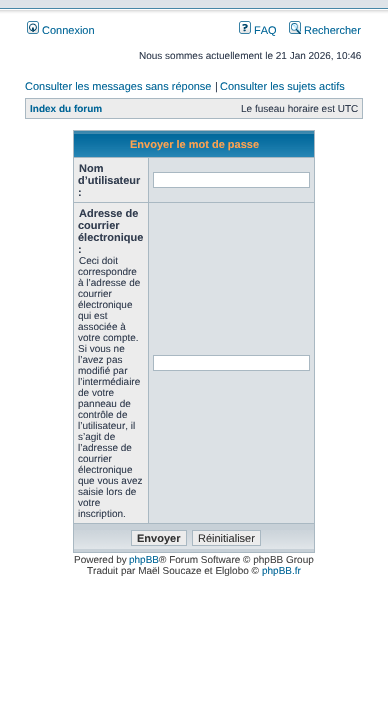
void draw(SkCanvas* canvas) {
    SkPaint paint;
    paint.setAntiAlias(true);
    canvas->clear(0xFFFFFFFF);
    canvas->drawImageRect(SkImages::DeferredFromEncodedData(SkData::MakeFromFileName("img1.png")), SkRect::MakeXYWH(0, 0, 388, 19), SkSamplingOptions());
    canvas->drawImageRect(SkImages::DeferredFromEncodedData(SkData::MakeFromFileName("img2.png")), SkRect::MakeXYWH(27, 21, 12, 13), SkSamplingOptions());
    SkFont font1(fontMgr->matchFamilyStyle("Liberation Sans", SkFontStyle::Normal()), 11);
    font1.setSubpixel(true);
    paint.setColor(0xFF006597);
    canvas->drawString("Connexion", 42, 34, font1, paint);
    canvas->drawImageRect(SkImages::DeferredFromEncodedData(SkData::MakeFromFileName("img3.png")), SkRect::MakeXYWH(239, 21, 12, 13), SkSamplingOptions());
    canvas->drawString("FAQ", 254, 34, font1, paint);
    canvas->drawImageRect(SkImages::DeferredFromEncodedData(SkData::MakeFromFileName("img4.png")), SkRect::MakeXYWH(289, 21, 12, 13), SkSamplingOptions());
    canvas->drawString("Rechercher", 304, 34, font1, paint);
    SkFont font2(fontMgr->matchFamilyStyle("Liberation Sans", SkFontStyle::Normal()), 10);
    font2.setSubpixel(true);
    paint.setColor(0xFF323D4F);
    canvas->drawString("Nous sommes actuellement le 21 Jan 2026, 10:46", 139, 59, font2, paint);
    paint.setColor(0xFF006597);
    canvas->drawString("Consulter les messages sans réponse", 25, 90, font1, paint);
    paint.setColor(0xFF323D4F);
    canvas->drawString("|", 215, 90, font1, paint);
    paint.setColor(0xFF006597);
    canvas->drawString("Consulter les sujets actifs", 220, 90, font1, paint);
    paint.setColor(0xFFA9B8C2);
    canvas->drawRect(SkRect::MakeXYWH(25, 98, 338, 21), paint);
    paint.setColor(0xFFECECEC);
    canvas->drawRect(SkRect::MakeXYWH(26, 99, 336, 19), paint);
    SkFont font3(fontMgr->matchFamilyStyle("Liberation Sans", SkFontStyle::Bold()), 10);
    font3.setSubpixel(true);
    paint.setColor(0xFF006597);
    canvas->drawString("Index du forum", 30, 112, font3, paint);
    paint.setColor(0xFF323D4F);
    canvas->drawString("Le fuseau horaire est UTC", 241, 112, font2, paint);
    paint.setColor(0xFFA9B8C2);
    canvas->drawRect(SkRect::MakeXYWH(73, 130, 242, 423), paint);
    canvas->drawImageRect(SkImages::DeferredFromEncodedData(SkData::MakeFromFileName("img5.png")), SkRect::MakeXYWH(74, 131, 240, 26), SkSamplingOptions());
    SkFont font4(fontMgr->matchFamilyStyle("Liberation Sans", SkFontStyle::Bold()), 11);
    font4.setSubpixel(true);
    paint.setColor(0xFFFFA34F);
    canvas->drawString("Envoyer le mot de passe", 130, 148, font4, paint);
    paint.setColor(0xFFECECEC);
    canvas->drawRect(SkRect::MakeXYWH(74, 158, 74, 44), paint);
    paint.setColor(0xFF323D4F);
    canvas->drawString("Nom", 79, 172, font4, paint);
    canvas->drawString("d’utilisateur", 78, 184, font4, paint);
    canvas->drawString(":", 78, 196, font4, paint);
    paint.setColor(0xFFDCE1E5);
    canvas->drawRect(SkRect::MakeXYWH(149, 158, 165, 44), paint);
    paint.setColor(0xFFFFFFFF);
    canvas->drawRect(SkRect::MakeXYWH(153.5f, 172.5f, 156, 15), paint);
    paint.setStyle(SkPaint::kStroke_Style);
    paint.setStrokeWidth(1);
    paint.setColor(0xFFA9B8C2);
    canvas->drawRect(SkRect::MakeXYWH(153.5f, 172.5f, 156, 15), paint);
    paint.setStyle(SkPaint::kFill_Style);
    paint.setColor(0xFFECECEC);
    canvas->drawRect(SkRect::MakeXYWH(74, 203, 74, 320), paint);
    paint.setColor(0xFF323D4F);
    canvas->drawString("Adresse de", 79, 217, font4, paint);
    canvas->drawString("courrier", 78, 229, font4, paint);
    canvas->drawString("électronique", 78, 241, font4, paint);
    canvas->drawString(":", 78, 253, font4, paint);
    canvas->drawString("Ceci doit", 79, 264, font2, paint);
    canvas->drawString("correspondre", 78, 275, font2, paint);
    canvas->drawString("à l’adresse de", 78, 286, font2, paint);
    canvas->drawString("courrier", 78, 297, font2, paint);
    canvas->drawString("électronique", 78, 308, font2, paint);
    canvas->drawString("qui est", 78, 319, font2, paint);
    canvas->drawString("associée à", 78, 330, font2, paint);
    canvas->drawString("votre compte.", 78, 341, font2, paint);
    canvas->drawString("Si vous ne", 78, 352, font2, paint);
    canvas->drawString("l’avez pas", 78, 363, font2, paint);
    canvas->drawString("modifié par", 78, 374, font2, paint);
    canvas->drawString("l’intermédiaire", 78, 385, font2, paint);
    canvas->drawString("de votre", 78, 396, font2, paint);
    canvas->drawString("panneau de", 78, 407, font2, paint);
    canvas->drawString("contrôle de", 78, 418, font2, paint);
    canvas->drawString("l’utilisateur, il", 78, 429, font2, paint);
    canvas->drawString("s’agit de", 78, 440, font2, paint);
    canvas->drawString("l’adresse de", 78, 451, font2, paint);
    canvas->drawString("courrier", 78, 462, font2, paint);
    canvas->drawString("électronique", 78, 473, font2, paint);
    canvas->drawString("que vous avez", 78, 484, font2, paint);
    canvas->drawString("saisie lors de", 78, 495, font2, paint);
    canvas->drawString("votre", 78, 506, font2, paint);
    canvas->drawString("inscription.", 78, 517, font2, paint);
    paint.setColor(0xFFDCE1E5);
    canvas->drawRect(SkRect::MakeXYWH(149, 203, 165, 320), paint);
    paint.setColor(0xFFFFFFFF);
    canvas->drawRect(SkRect::MakeXYWH(153.5f, 355.5f, 156, 15), paint);
    paint.setStyle(SkPaint::kStroke_Style);
    paint.setColor(0xFFA9B8C2);
    canvas->drawRect(SkRect::MakeXYWH(153.5f, 355.5f, 156, 15), paint);
    paint.setStyle(SkPaint::kFill_Style);
    paint.setColor(0xFFC7D0D7);
    canvas->drawRect(SkRect::MakeXYWH(74, 524, 240, 28), paint);
    canvas->drawImageRect(SkImages::DeferredFromEncodedData(SkData::MakeFromFileName("img6.png")), SkRect::MakeXYWH(74, 530, 240, 19), SkSamplingOptions());
    paint.setColor(0xFFECECEC);
    canvas->drawRect(SkRect::MakeXYWH(131.5f, 530.5f, 55, 15), paint);
    paint.setStyle(SkPaint::kStroke_Style);
    paint.setColor(0xFFA9B8C2);
    canvas->drawRect(SkRect::MakeXYWH(131.5f, 530.5f, 55, 15), paint);
    paint.setStyle(SkPaint::kFill_Style);
    paint.setColor(0xFF333333);
    canvas->drawString("Envoyer", 137, 542, font4, paint);
    paint.setColor(0xFFECECEC);
    canvas->drawRect(SkRect::MakeXYWH(192.5f, 530.5f, 68, 15), paint);
    paint.setStyle(SkPaint::kStroke_Style);
    paint.setColor(0xFFA9B8C2);
    canvas->drawRect(SkRect::MakeXYWH(192.5f, 530.5f, 68, 15), paint);
    paint.setStyle(SkPaint::kFill_Style);
    paint.setColor(0xFF333333);
    canvas->drawString("Réinitialiser", 198, 542, font1, paint);
    paint.setColor(0xFF444444);
    canvas->drawString("Powered by", 74, 563, font2, paint);
    paint.setColor(0xFF006597);
    canvas->drawString("phpBB", 129, 563, font2, paint);
    paint.setColor(0xFF444444);
    canvas->drawString("® Forum Software © phpBB Group", 159, 563, font2, paint);
    canvas->drawString("Traduit par Maël Soucaze et Elglobo ©", 87, 574, font2, paint);
    paint.setColor(0xFF006597);
    canvas->drawString("phpBB.fr", 262, 574, font2, paint);
}
